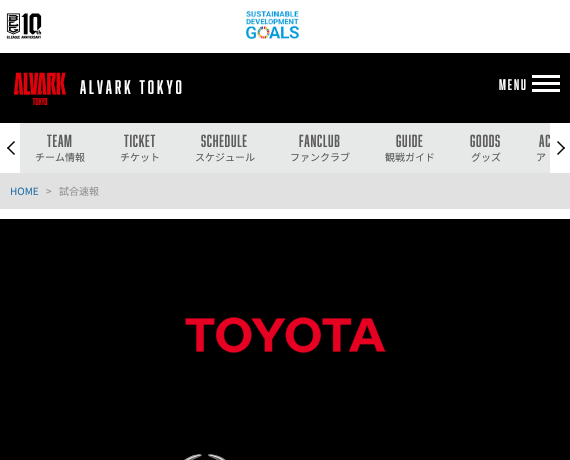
void draw(SkCanvas* canvas) {
    SkPaint paint;
    paint.setAntiAlias(true);
    auto spacedText = [&](const char* s, float x, float y, const SkFont& font, const SkPaint& ink, float letter, float word) {
        std::vector<SkGlyphID> glyphs(font.countText(s, strlen(s), SkTextEncoding::kUTF8));
        std::vector<float> xs(glyphs.size());
        font.textToGlyphs(s, strlen(s), SkTextEncoding::kUTF8, glyphs);
        font.getXPos(glyphs, xs, x);
        float extra = 0;
        for (size_t i = 0; i < glyphs.size(); i++) {
            xs[i] += extra;
            extra += letter + word * (glyphs[i] == font.unicharToGlyph(' '));
        }
        canvas->drawTextBlob(SkTextBlob::MakeFromPosHGlyphs(glyphs, xs, y, font), 0, 0, ink);
    };
    canvas->clear(0xFFFFFFFF);
    canvas->drawImageRect(SkImages::DeferredFromEncodedData(SkData::MakeFromFileName("img1.png")), SkRect::MakeXYWH(6, 13, 36, 26), SkSamplingOptions());
    canvas->drawImageRect(SkImages::DeferredFromEncodedData(SkData::MakeFromFileName("img2.png")), SkRect::MakeXYWH(246, 11, 53, 28), SkSamplingOptions());
    paint.setColor(0xFF000000);
    canvas->drawRect(SkRect::MakeXYWH(0, 53, 570, 70), paint);
    canvas->drawImageRect(SkImages::DeferredFromEncodedData(SkData::MakeFromFileName("img3.png")), SkRect::MakeXYWH(14, 72, 52, 33), SkSamplingOptions());
    SkFont font1(fontMgr->matchFamilyStyle("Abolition", SkFontStyle::Normal()), 18);
    font1.setSubpixel(true);
    paint.setColor(0xFFFFFFFF);
    spacedText("ALVARK TOKYO", 80, 94, font1, paint, 3, 0);
    SkFont font2(fontMgr->matchFamilyStyle("Abolition", SkFontStyle::Normal()), 14);
    font2.setSubpixel(true);
    spacedText("MENU", 499, 90, font2, paint, 2, 0);
    canvas->drawRect(SkRect::MakeXYWH(532, 75, 28, 3), paint);
    canvas->drawRect(SkRect::MakeXYWH(532, 82, 28, 3), paint);
    canvas->drawRect(SkRect::MakeXYWH(532, 89, 28, 3), paint);
    paint.setColor(0xFFE7E8E8);
    canvas->drawRect(SkRect::MakeXYWH(20, 123, 530, 50), paint);
    paint.setColor(0xFF000000);
    canvas->drawPath(SkPathBuilder().moveTo(8, 147).lineTo(15, 154).lineTo(14, 155).lineTo(7, 148).close().detach(), paint);
    canvas->drawPath(SkPathBuilder().moveTo(7, 148).lineTo(14, 141).lineTo(15, 142).lineTo(8, 149).close().detach(), paint);
    SkFont font3(fontMgr->matchFamilyStyle("Abolition", SkFontStyle::Normal()), 16);
    font3.setSubpixel(true);
    paint.setColor(0xFF5C5C5C);
    spacedText("TEAM", 47, 147, font3, paint, 0.75f, 0);
    SkFont font4(fontMgr->matchFamilyStyle("Noto Sans CJK JP", SkFontStyle::Normal()), 10);
    font4.setSubpixel(true);
    canvas->drawString("チーム情報", 35, 161, font4, paint);
    spacedText("TICKET", 124, 147, font3, paint, 0.75f, 0);
    canvas->drawString("チケット", 120, 161, font4, paint);
    spacedText("SCHEDULE", 201, 147, font3, paint, 0.75f, 0);
    canvas->drawString("スケジュール", 195, 161, font4, paint);
    spacedText("FANCLUB", 299, 147, font3, paint, 0.75f, 0);
    canvas->drawString("ファンクラブ", 290, 161, font4, paint);
    spacedText("GUIDE", 396, 147, font3, paint, 0.75f, 0);
    canvas->drawString("観戦ガイド", 385, 161, font4, paint);
    spacedText("GOODS", 470, 147, font3, paint, 0.75f, 0);
    canvas->drawString("グッズ", 471, 161, font4, paint);
    spacedText("AC", 539, 147, font3, paint, 0.75f, 0);
    canvas->drawString("ア", 536, 161, font4, paint);
    paint.setColor(0xFF000000);
    canvas->drawPath(SkPathBuilder().moveTo(558, 141).lineTo(565, 148).lineTo(564, 149).lineTo(557, 142).close().detach(), paint);
    canvas->drawPath(SkPathBuilder().moveTo(557, 154).lineTo(564, 147).lineTo(565, 148).lineTo(558, 155).close().detach(), paint);
    paint.setColor(0xFFE1E1E2);
    canvas->drawRect(SkRect::MakeXYWH(0, 173, 570, 36), paint);
    paint.setColor(0xFF2971A7);
    canvas->drawString("HOME", 10, 195, font4, paint);
    paint.setColor(0xFF939393);
    canvas->drawString(">", 46, 195, font4, paint);
    canvas->drawString("試合速報", 59, 195, font4, paint);
    paint.setColor(0xFF000000);
    canvas->drawRect(SkRect::MakeXYWH(0, 219, 570, 241), paint);
    canvas->drawImageRect(SkImages::DeferredFromEncodedData(SkData::MakeFromFileName("img4.png")), SkRect::MakeXYWH(185, 317, 201, 36), SkSamplingOptions());
    canvas->drawImageRect(SkImages::DeferredFromEncodedData(SkData::MakeFromFileName("img5.png")), SkRect::MakeXYWH(184, 454, 42, 6), SkSamplingOptions());
}
